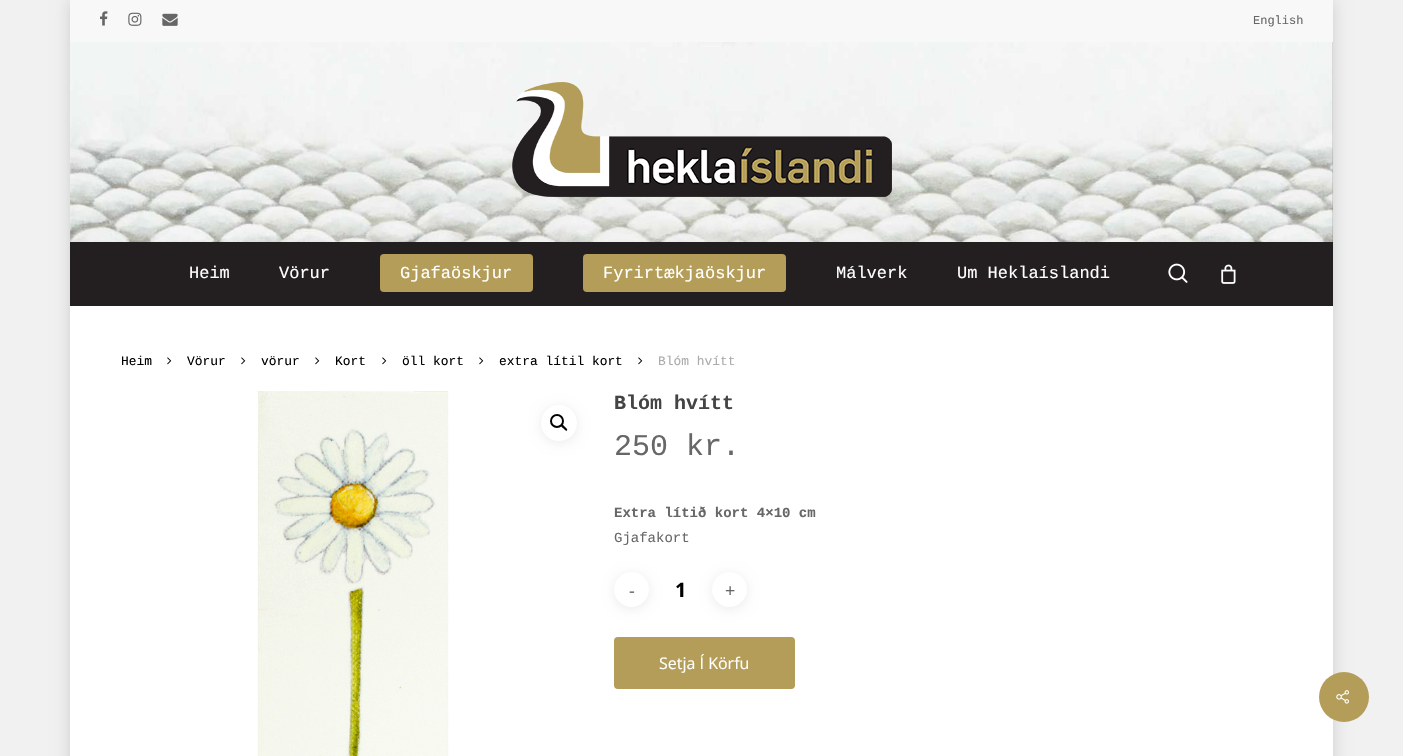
void draw(SkCanvas* canvas) {
    SkPaint paint;
    paint.setAntiAlias(true);
    canvas->clear(0xFFF1F1F1);
    paint.setColor(0x26000000);
    paint.setMaskFilter(SkMaskFilter::MakeBlur(kNormal_SkBlurStyle, 7.5f));
    canvas->drawRect(SkRect::MakeXYWH(70, 0, 1263, 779), paint);
    paint.setMaskFilter(nullptr);
    paint.setColor(0xFFF8F8F8);
    canvas->drawRect(SkRect::MakeXYWH(70, 0, 1263, 42), paint);
    canvas->drawImageRect(SkImages::DeferredFromEncodedData(SkData::MakeFromFileName("img1.png")), SkRect::MakeXYWH(100, 11, 8, 15), SkSamplingOptions());
    canvas->drawImageRect(SkImages::DeferredFromEncodedData(SkData::MakeFromFileName("img2.png")), SkRect::MakeXYWH(128, 12, 14, 14), SkSamplingOptions());
    canvas->drawImageRect(SkImages::DeferredFromEncodedData(SkData::MakeFromFileName("img3.png")), SkRect::MakeXYWH(162, 13, 16, 13), SkSamplingOptions());
    SkFont font1(fontMgr->matchFamilyStyle("Liberation Mono", SkFontStyle::Normal()), 12);
    font1.setSubpixel(true);
    paint.setColor(0xFF676767);
    canvas->drawString("English", 1253, 24, font1, paint);
    paint.setColor(0xFF231F20);
    canvas->drawRect(SkRect::MakeXYWH(70, 42, 1263, 264), paint);
    canvas->drawImageRect(SkImages::DeferredFromEncodedData(SkData::MakeFromFileName("img4.png")), SkRect::MakeXYWH(70, 42, 1263, 200), SkSamplingOptions());
    canvas->drawImageRect(SkImages::DeferredFromEncodedData(SkData::MakeFromFileName("img5.png")), SkRect::MakeXYWH(512, 82, 380, 115), SkSamplingOptions());
    SkFont font2(fontMgr->matchFamilyStyle("Liberation Mono", SkFontStyle::Normal()), 17);
    font2.setSubpixel(true);
    paint.setColor(0xFFFFFFFF);
    canvas->drawString("Heim", 189, 278, font2, paint);
    canvas->drawString("Vörur", 279, 278, font2, paint);
    paint.setColor(0xFFB49D59);
    canvas->drawRoundRect(SkRect::MakeXYWH(380, 254, 153, 38), 4, 4, paint);
    paint.setColor(0xFFFFFFFF);
    canvas->drawString("Gjafaöskjur", 400, 278, font2, paint);
    paint.setColor(0xFFB49D59);
    canvas->drawRoundRect(SkRect::MakeXYWH(583, 254, 203, 38), 4, 4, paint);
    paint.setColor(0xFFFFFFFF);
    canvas->drawString("Fyrirtækjaöskjur", 603, 278, font2, paint);
    canvas->drawString("Málverk", 836, 278, font2, paint);
    canvas->drawString("Um Heklaíslandi", 957, 278, font2, paint);
    canvas->drawImageRect(SkImages::DeferredFromEncodedData(SkData::MakeFromFileName("img6.png")), SkRect::MakeXYWH(1168, 263, 20, 20), SkSamplingOptions());
    canvas->drawImageRect(SkImages::DeferredFromEncodedData(SkData::MakeFromFileName("img7.png")), SkRect::MakeXYWH(1221, 264, 15, 20), SkSamplingOptions());
    canvas->drawRect(SkRect::MakeXYWH(70, 306, 1263, 450), paint);
    SkFont font3(fontMgr->matchFamilyStyle("Liberation Mono", SkFontStyle::Normal()), 12.9f);
    font3.setSubpixel(true);
    paint.setColor(0xFF000000);
    canvas->drawString("Heim", 121, 365, font3, paint);
    canvas->drawImageRect(SkImages::DeferredFromEncodedData(SkData::MakeFromFileName("img8.png")), SkRect::MakeXYWH(167, 357, 5, 8), SkSamplingOptions());
    canvas->drawString("Vörur", 187, 365, font3, paint);
    canvas->drawImageRect(SkImages::DeferredFromEncodedData(SkData::MakeFromFileName("img8.png")), SkRect::MakeXYWH(241, 357, 5, 8), SkSamplingOptions());
    canvas->drawString("vörur", 261, 365, font3, paint);
    canvas->drawImageRect(SkImages::DeferredFromEncodedData(SkData::MakeFromFileName("img8.png")), SkRect::MakeXYWH(315, 357, 5, 8), SkSamplingOptions());
    canvas->drawString("Kort", 335, 365, font3, paint);
    canvas->drawImageRect(SkImages::DeferredFromEncodedData(SkData::MakeFromFileName("img8.png")), SkRect::MakeXYWH(382, 357, 5, 8), SkSamplingOptions());
    canvas->drawString("öll kort", 402, 365, font3, paint);
    canvas->drawImageRect(SkImages::DeferredFromEncodedData(SkData::MakeFromFileName("img8.png")), SkRect::MakeXYWH(479, 357, 5, 8), SkSamplingOptions());
    canvas->drawString("extra lítil kort", 499, 365, font3, paint);
    canvas->drawImageRect(SkImages::DeferredFromEncodedData(SkData::MakeFromFileName("img8.png")), SkRect::MakeXYWH(638, 357, 5, 8), SkSamplingOptions());
    paint.setColor(0xFFABABAB);
    canvas->drawString("Blóm hvítt", 658, 365, font3, paint);
    canvas->drawImageRect(SkImages::DeferredFromEncodedData(SkData::MakeFromFileName("img9.png")), SkRect::MakeXYWH(257, 391, 192, 365), SkSamplingOptions());
    paint.setColor(0x14000000);
    paint.setMaskFilter(SkMaskFilter::MakeBlur(kNormal_SkBlurStyle, 6));
    canvas->drawRoundRect(SkRect::MakeXYWH(541, 407, 36, 36), 18, 18, paint);
    paint.setMaskFilter(nullptr);
    paint.setColor(0xFFFFFFFF);
    canvas->drawCircle(559, 423, 18, paint);
    paint.setStyle(SkPaint::kStroke_Style);
    paint.setStrokeWidth(2);
    paint.setColor(0xFF000000);
    canvas->drawCircle(557, 421, 6, paint);
    paint.setStyle(SkPaint::kFill_Style);
    canvas->drawPath(SkPathBuilder().moveTo(561.5f, 425).cubicTo(562.5f, 423.5f, 564, 426.5f, 565, 427).cubicTo(565.5f, 427.5f, 568, 429.5f, 567, 430.5f).cubicTo(566, 431.5f, 564, 429, 563.5f, 428.5f).cubicTo(563, 428, 560, 426, 561.5f, 425).close().detach(), paint);
    SkFont font4(fontMgr->matchFamilyStyle("Liberation Mono", SkFontStyle::Bold()), 20);
    font4.setSubpixel(true);
    paint.setColor(0xFF444444);
    canvas->drawString("Blóm hvítt", 614, 409, font4, paint);
    SkFont font5(fontMgr->matchFamilyStyle("Liberation Mono", SkFontStyle::Normal()), 30);
    font5.setSubpixel(true);
    paint.setColor(0xFF676767);
    canvas->drawString("250 kr.", 614, 455, font5, paint);
    SkFont font6(fontMgr->matchFamilyStyle("Liberation Mono", SkFontStyle::Bold()), 14);
    font6.setSubpixel(true);
    canvas->drawString("Extra lítið kort 4×10 cm", 614, 517, font6, paint);
    SkFont font7(fontMgr->matchFamilyStyle("Liberation Mono", SkFontStyle::Normal()), 14);
    font7.setSubpixel(true);
    canvas->drawString("Gjafakort", 614, 542, font7, paint);
    paint.setColor(0x14000000);
    paint.setMaskFilter(SkMaskFilter::MakeBlur(kNormal_SkBlurStyle, 6));
    canvas->drawRoundRect(SkRect::MakeXYWH(614, 574, 35, 35), 17.5f, 17.5f, paint);
    paint.setMaskFilter(nullptr);
    paint.setColor(0xFFFFFFFF);
    canvas->drawCircle(631.5f, 589.5f, 17.5f, paint);
    SkFont font8(fontMgr->matchFamilyStyle("Open Sans", SkFontStyle::Normal()), 18);
    font8.setSubpixel(true);
    paint.setColor(0xFF676767);
    canvas->drawString("-", 629, 597, font8, paint);
    SkFont font9(fontMgr->matchFamilyStyle("Open Sans", SkFontStyle::Bold()), 20);
    font9.setSubpixel(true);
    paint.setColor(0xFF000000);
    canvas->drawString("1", 675, 597, font9, paint);
    paint.setColor(0x14000000);
    paint.setMaskFilter(SkMaskFilter::MakeBlur(kNormal_SkBlurStyle, 6));
    canvas->drawRoundRect(SkRect::MakeXYWH(712, 574, 35, 35), 17.5f, 17.5f, paint);
    paint.setMaskFilter(nullptr);
    paint.setColor(0xFFFFFFFF);
    canvas->drawCircle(729.5f, 589.5f, 17.5f, paint);
    paint.setColor(0xFF676767);
    canvas->drawString("+", 725, 597, font8, paint);
    paint.setColor(0xFFB49D59);
    canvas->drawRoundRect(SkRect::MakeXYWH(614, 637, 181, 52), 4, 4, paint);
    SkFont font10(fontMgr->matchFamilyStyle("Open Sans", SkFontStyle::Normal()), 16);
    font10.setSubpixel(true);
    paint.setColor(0xFFFFFFFF);
    canvas->drawString("Setja Í Körfu", 659, 669, font10, paint);
    paint.setColor(0xFFB49D59);
    canvas->drawCircle(1344, 697, 25, paint);
    canvas->drawImageRect(SkImages::DeferredFromEncodedData(SkData::MakeFromFileName("img10.png")), SkRect::MakeXYWH(1336, 690, 13, 14), SkSamplingOptions());
}
